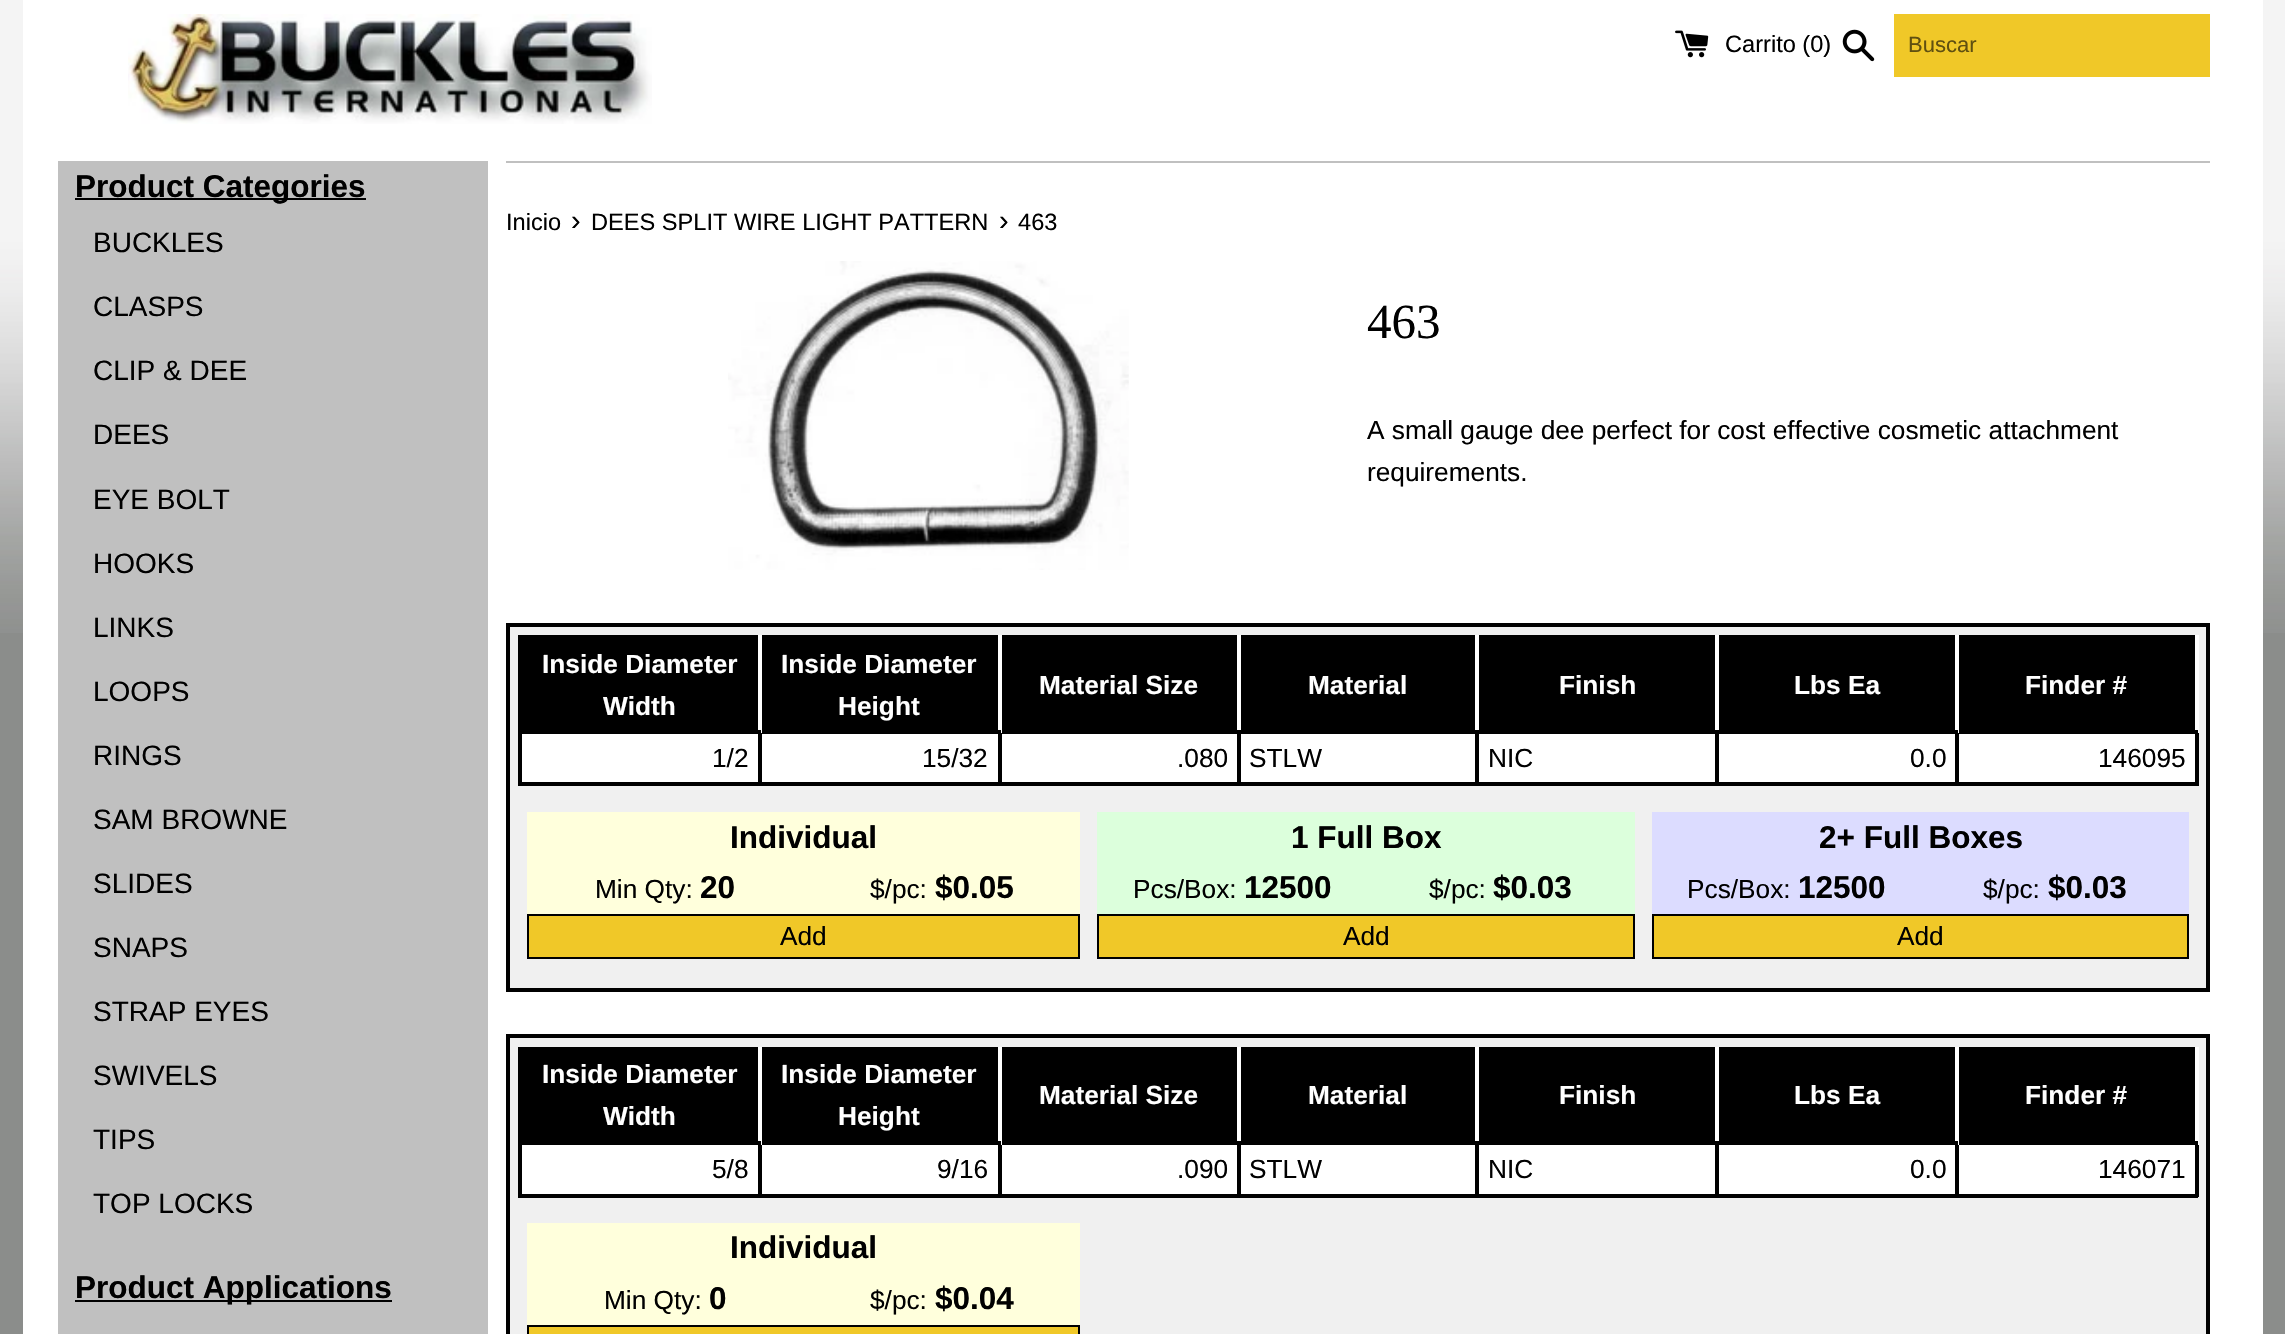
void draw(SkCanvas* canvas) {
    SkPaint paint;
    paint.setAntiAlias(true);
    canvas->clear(0xFF8B8D8B);
    canvas->drawImageRect(SkImages::DeferredFromEncodedData(SkData::MakeFromFileName("img1.png")), SkRect::MakeXYWH(0, 0, 2285, 633), SkSamplingOptions());
    paint.setColor(0xFFFFFFFF);
    canvas->drawRect(SkRect::MakeXYWH(23, 0, 2240, 1334), paint);
    canvas->drawImageRect(SkImages::DeferredFromEncodedData(SkData::MakeFromFileName("img2.png")), SkRect::MakeXYWH(128, 14, 524, 110), SkSamplingOptions());
    canvas->drawImageRect(SkImages::DeferredFromEncodedData(SkData::MakeFromFileName("img3.png")), SkRect::MakeXYWH(1675, 30, 34, 28), SkSamplingOptions());
    SkFont font1(fontMgr->matchFamilyStyle("Liberation Sans", SkFontStyle::Normal()), 23.6f);
    font1.setSubpixel(true);
    paint.setColor(0xFF000000);
    canvas->drawString("Carrito (0)", 1725, 52, font1, paint);
    canvas->drawImageRect(SkImages::DeferredFromEncodedData(SkData::MakeFromFileName("img4.png")), SkRect::MakeXYWH(1842, 29, 33, 33), SkSamplingOptions());
    paint.setColor(0xFFF0C828);
    canvas->drawRect(SkRect::MakeXYWH(1894, 14, 316, 63), paint);
    SkFont font2(fontMgr->matchFamilyStyle("Liberation Sans", SkFontStyle::Normal()), 22);
    font2.setSubpixel(true);
    paint.setColor(0xFF605010);
    canvas->drawString("Buscar", 1908, 52, font2, paint);
    paint.setColor(0xFFC0C0C0);
    canvas->drawRect(SkRect::MakeXYWH(58, 161, 430, 1173), paint);
    paint.setColor(0xFF000000);
    canvas->drawRect(SkRect::MakeXYWH(75, 198, 291, 2), paint);
    SkFont font3(fontMgr->matchFamilyStyle("Liberation Sans", SkFontStyle::Bold()), 31.5f);
    font3.setSubpixel(true);
    canvas->drawString("Product Categories", 75, 197, font3, paint);
    SkFont font4(fontMgr->matchFamilyStyle("Liberation Sans", SkFontStyle::Normal()), 28);
    font4.setSubpixel(true);
    canvas->drawString("BUCKLES", 93, 252, font4, paint);
    canvas->drawString("CLASPS", 93, 316, font4, paint);
    canvas->drawString("CLIP & DEE", 93, 380, font4, paint);
    canvas->drawString("DEES", 93, 444, font4, paint);
    canvas->drawString("EYE BOLT", 93, 509, font4, paint);
    canvas->drawString("HOOKS", 93, 573, font4, paint);
    canvas->drawString("LINKS", 93, 637, font4, paint);
    canvas->drawString("LOOPS", 93, 701, font4, paint);
    canvas->drawString("RINGS", 93, 765, font4, paint);
    canvas->drawString("SAM BROWNE", 93, 829, font4, paint);
    canvas->drawString("SLIDES", 93, 893, font4, paint);
    canvas->drawString("SNAPS", 93, 957, font4, paint);
    canvas->drawString("STRAP EYES", 93, 1021, font4, paint);
    canvas->drawString("SWIVELS", 93, 1085, font4, paint);
    canvas->drawString("TIPS", 93, 1149, font4, paint);
    canvas->drawString("TOP LOCKS", 93, 1213, font4, paint);
    canvas->drawRect(SkRect::MakeXYWH(75, 1300, 317, 2), paint);
    canvas->drawString("Product Applications", 75, 1298, font3, paint);
    paint.setColor(0xFFC0C0C0);
    canvas->drawRect(SkRect::MakeXYWH(506, 161, 1704, 2), paint);
    paint.setColor(0xFF000000);
    canvas->drawString("Inicio", 506, 230, font1, paint);
    SkFont font5(fontMgr->matchFamilyStyle("Liberation Sans", SkFontStyle::Normal()), 29);
    font5.setSubpixel(true);
    canvas->drawString("›", 571, 230, font5, paint);
    canvas->drawString("DEES SPLIT WIRE LIGHT PATTERN", 591, 230, font1, paint);
    canvas->drawString("›", 999, 230, font5, paint);
    canvas->drawString("463", 1018, 230, font1, paint);
    canvas->drawImageRect(SkImages::DeferredFromEncodedData(SkData::MakeFromFileName("img5.png")), SkRect::MakeXYWH(728, 261, 401, 309), SkSamplingOptions());
    SkFont font6(fontMgr->matchFamilyStyle("Liberation Serif", SkFontStyle::Normal()), 49);
    font6.setSubpixel(true);
    canvas->drawString("463", 1367, 338, font6, paint);
    SkFont font7(fontMgr->matchFamilyStyle("Liberation Sans", SkFontStyle::Normal()), 26.25f);
    font7.setSubpixel(true);
    canvas->drawString("A small gauge dee perfect for cost effective cosmetic attachment", 1367, 439, font7, paint);
    canvas->drawString("requirements.", 1367, 481, font7, paint);
    paint.setColor(0xFFF0F0F0);
    canvas->drawRect(SkRect::MakeXYWH(508, 625, 1700, 365), paint);
    paint.setStyle(SkPaint::kStroke_Style);
    paint.setStrokeWidth(4);
    paint.setColor(0xFF000000);
    canvas->drawRect(SkRect::MakeXYWH(508, 625, 1700, 365), paint);
    paint.setStyle(SkPaint::kFill_Style);
    canvas->drawRect(SkRect::MakeXYWH(522, 639, 236, 91), paint);
    canvas->drawRect(SkRect::MakeXYWH(518, 635, 1680, 4), paint);
    canvas->drawRect(SkRect::MakeXYWH(2195, 730, 4, 56), paint);
    paint.setColor(0xFFFFFFFF);
    canvas->drawRect(SkRect::MakeXYWH(2195, 635, 4, 98), paint);
    paint.setColor(0xFF000000);
    canvas->drawRect(SkRect::MakeXYWH(1955, 782, 243, 4), paint);
    canvas->drawRect(SkRect::MakeXYWH(1955, 730, 4, 56), paint);
    canvas->drawRect(SkRect::MakeXYWH(1955, 730, 243, 4), paint);
    paint.setColor(0xFFFFFFFF);
    canvas->drawRect(SkRect::MakeXYWH(1955, 635, 4, 98), paint);
    paint.setColor(0xFF000000);
    canvas->drawRect(SkRect::MakeXYWH(1715, 782, 243, 4), paint);
    canvas->drawRect(SkRect::MakeXYWH(1715, 730, 4, 56), paint);
    canvas->drawRect(SkRect::MakeXYWH(1715, 730, 243, 4), paint);
    paint.setColor(0xFFFFFFFF);
    canvas->drawRect(SkRect::MakeXYWH(1715, 635, 4, 98), paint);
    paint.setColor(0xFF000000);
    canvas->drawRect(SkRect::MakeXYWH(1475, 782, 244, 4), paint);
    canvas->drawRect(SkRect::MakeXYWH(1475, 730, 4, 56), paint);
    canvas->drawRect(SkRect::MakeXYWH(1475, 730, 244, 4), paint);
    paint.setColor(0xFFFFFFFF);
    canvas->drawRect(SkRect::MakeXYWH(1475, 635, 4, 98), paint);
    paint.setColor(0xFF000000);
    canvas->drawRect(SkRect::MakeXYWH(1237, 782, 242, 4), paint);
    canvas->drawRect(SkRect::MakeXYWH(1237, 730, 4, 56), paint);
    canvas->drawRect(SkRect::MakeXYWH(1237, 730, 242, 4), paint);
    paint.setColor(0xFFFFFFFF);
    canvas->drawRect(SkRect::MakeXYWH(1237, 635, 4, 98), paint);
    paint.setColor(0xFF000000);
    canvas->drawRect(SkRect::MakeXYWH(998, 782, 243, 4), paint);
    canvas->drawRect(SkRect::MakeXYWH(998, 730, 4, 56), paint);
    canvas->drawRect(SkRect::MakeXYWH(998, 730, 243, 4), paint);
    paint.setColor(0xFFFFFFFF);
    canvas->drawRect(SkRect::MakeXYWH(998, 635, 4, 98), paint);
    paint.setColor(0xFF000000);
    canvas->drawRect(SkRect::MakeXYWH(758, 782, 243, 4), paint);
    canvas->drawRect(SkRect::MakeXYWH(758, 730, 4, 56), paint);
    canvas->drawRect(SkRect::MakeXYWH(758, 730, 243, 4), paint);
    paint.setColor(0xFFFFFFFF);
    canvas->drawRect(SkRect::MakeXYWH(758, 635, 4, 98), paint);
    paint.setColor(0xFF000000);
    canvas->drawRect(SkRect::MakeXYWH(518, 782, 243, 4), paint);
    canvas->drawRect(SkRect::MakeXYWH(518, 730, 4, 56), paint);
    canvas->drawRect(SkRect::MakeXYWH(518, 730, 243, 4), paint);
    canvas->drawRect(SkRect::MakeXYWH(518, 635, 4, 98), paint);
    SkFont font8(fontMgr->matchFamilyStyle("Liberation Sans", SkFontStyle::Bold()), 26.25f);
    font8.setSubpixel(true);
    paint.setColor(0xFFFFFFFF);
    canvas->drawString("Inside Diameter", 542, 673, font8, paint);
    canvas->drawString("Width", 603, 715, font8, paint);
    paint.setColor(0xFF000000);
    canvas->drawRect(SkRect::MakeXYWH(762, 639, 236, 91), paint);
    paint.setColor(0xFFFFFFFF);
    canvas->drawString("Inside Diameter", 781, 673, font8, paint);
    canvas->drawString("Height", 838, 715, font8, paint);
    paint.setColor(0xFF000000);
    canvas->drawRect(SkRect::MakeXYWH(1002, 639, 235, 91), paint);
    paint.setColor(0xFFFFFFFF);
    canvas->drawString("Material Size", 1039, 694, font8, paint);
    paint.setColor(0xFF000000);
    canvas->drawRect(SkRect::MakeXYWH(1241, 639, 234, 91), paint);
    paint.setColor(0xFFFFFFFF);
    canvas->drawString("Material", 1308, 694, font8, paint);
    paint.setColor(0xFF000000);
    canvas->drawRect(SkRect::MakeXYWH(1479, 639, 236, 91), paint);
    paint.setColor(0xFFFFFFFF);
    canvas->drawString("Finish", 1559, 694, font8, paint);
    paint.setColor(0xFF000000);
    canvas->drawRect(SkRect::MakeXYWH(1719, 639, 236, 91), paint);
    paint.setColor(0xFFFFFFFF);
    canvas->drawString("Lbs Ea", 1794, 694, font8, paint);
    paint.setColor(0xFF000000);
    canvas->drawRect(SkRect::MakeXYWH(1959, 639, 236, 91), paint);
    paint.setColor(0xFFFFFFFF);
    canvas->drawString("Finder #", 2025, 694, font8, paint);
    canvas->drawRect(SkRect::MakeXYWH(522, 734, 236, 48), paint);
    paint.setColor(0xFF000000);
    canvas->drawString("1/2", 712, 767, font7, paint);
    paint.setColor(0xFFFFFFFF);
    canvas->drawRect(SkRect::MakeXYWH(762, 734, 236, 48), paint);
    paint.setColor(0xFF000000);
    canvas->drawString("15/32", 922, 767, font7, paint);
    paint.setColor(0xFFFFFFFF);
    canvas->drawRect(SkRect::MakeXYWH(1002, 734, 235, 48), paint);
    paint.setColor(0xFF000000);
    canvas->drawString(".080", 1177, 767, font7, paint);
    paint.setColor(0xFFFFFFFF);
    canvas->drawRect(SkRect::MakeXYWH(1241, 734, 234, 48), paint);
    paint.setColor(0xFF000000);
    canvas->drawString("STLW", 1249, 767, font7, paint);
    paint.setColor(0xFFFFFFFF);
    canvas->drawRect(SkRect::MakeXYWH(1479, 734, 236, 48), paint);
    paint.setColor(0xFF000000);
    canvas->drawString("NIC", 1488, 767, font7, paint);
    paint.setColor(0xFFFFFFFF);
    canvas->drawRect(SkRect::MakeXYWH(1719, 734, 236, 48), paint);
    paint.setColor(0xFF000000);
    canvas->drawString("0.0", 1910, 767, font7, paint);
    paint.setColor(0xFFFFFFFF);
    canvas->drawRect(SkRect::MakeXYWH(1959, 734, 236, 48), paint);
    paint.setColor(0xFF000000);
    canvas->drawString("146095", 2098, 767, font7, paint);
    paint.setColor(0xFFFFFFDC);
    canvas->drawRect(SkRect::MakeXYWH(527, 812, 553, 102), paint);
    paint.setColor(0xFF000000);
    canvas->drawString("Individual", 730, 848, font3, paint);
    canvas->drawString("Min Qty:", 595, 898, font7, paint);
    canvas->drawString("20", 700, 898, font3, paint);
    canvas->drawString("$/pc:", 870, 898, font7, paint);
    canvas->drawString("$0.05", 935, 898, font3, paint);
    paint.setColor(0xFFF0C828);
    canvas->drawRect(SkRect::MakeXYWH(528, 915, 551, 43), paint);
    paint.setStyle(SkPaint::kStroke_Style);
    paint.setStrokeWidth(2);
    paint.setColor(0xFF000000);
    canvas->drawRect(SkRect::MakeXYWH(528, 915, 551, 43), paint);
    paint.setStyle(SkPaint::kFill_Style);
    canvas->drawString("Add", 780, 945, font7, paint);
    paint.setColor(0xFFDCFFDC);
    canvas->drawRect(SkRect::MakeXYWH(1097, 812, 538, 102), paint);
    paint.setColor(0xFF000000);
    canvas->drawString("1 Full Box", 1291, 848, font3, paint);
    canvas->drawString("Pcs/Box:", 1133, 898, font7, paint);
    canvas->drawString("12500", 1244, 898, font3, paint);
    canvas->drawString("$/pc:", 1429, 898, font7, paint);
    canvas->drawString("$0.03", 1493, 898, font3, paint);
    paint.setColor(0xFFF0C828);
    canvas->drawRect(SkRect::MakeXYWH(1098, 915, 536, 43), paint);
    paint.setStyle(SkPaint::kStroke_Style);
    paint.setColor(0xFF000000);
    canvas->drawRect(SkRect::MakeXYWH(1098, 915, 536, 43), paint);
    paint.setStyle(SkPaint::kFill_Style);
    canvas->drawString("Add", 1343, 945, font7, paint);
    paint.setColor(0xFFDCDCFF);
    canvas->drawRect(SkRect::MakeXYWH(1652, 812, 537, 102), paint);
    paint.setColor(0xFF000000);
    canvas->drawString("2+ Full Boxes", 1819, 848, font3, paint);
    canvas->drawString("Pcs/Box:", 1687, 898, font7, paint);
    canvas->drawString("12500", 1798, 898, font3, paint);
    canvas->drawString("$/pc:", 1983, 898, font7, paint);
    canvas->drawString("$0.03", 2048, 898, font3, paint);
    paint.setColor(0xFFF0C828);
    canvas->drawRect(SkRect::MakeXYWH(1653, 915, 535, 43), paint);
    paint.setStyle(SkPaint::kStroke_Style);
    paint.setColor(0xFF000000);
    canvas->drawRect(SkRect::MakeXYWH(1653, 915, 535, 43), paint);
    paint.setStyle(SkPaint::kFill_Style);
    canvas->drawString("Add", 1897, 945, font7, paint);
    paint.setColor(0xFFF0F0F0);
    canvas->drawRect(SkRect::MakeXYWH(508, 1036, 1700, 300), paint);
    paint.setStyle(SkPaint::kStroke_Style);
    paint.setStrokeWidth(4);
    paint.setColor(0xFF000000);
    canvas->drawRect(SkRect::MakeXYWH(508, 1036, 1700, 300), paint);
    paint.setStyle(SkPaint::kFill_Style);
    canvas->drawRect(SkRect::MakeXYWH(522, 1051, 236, 90), paint);
    canvas->drawRect(SkRect::MakeXYWH(518, 1047, 1680, 4), paint);
    canvas->drawRect(SkRect::MakeXYWH(2195, 1141, 4, 56), paint);
    paint.setColor(0xFFFFFFFF);
    canvas->drawRect(SkRect::MakeXYWH(2195, 1047, 4, 98), paint);
    paint.setColor(0xFF000000);
    canvas->drawRect(SkRect::MakeXYWH(1955, 1194, 243, 4), paint);
    canvas->drawRect(SkRect::MakeXYWH(1955, 1141, 4, 56), paint);
    canvas->drawRect(SkRect::MakeXYWH(1955, 1141, 243, 4), paint);
    paint.setColor(0xFFFFFFFF);
    canvas->drawRect(SkRect::MakeXYWH(1955, 1047, 4, 98), paint);
    paint.setColor(0xFF000000);
    canvas->drawRect(SkRect::MakeXYWH(1715, 1194, 243, 4), paint);
    canvas->drawRect(SkRect::MakeXYWH(1715, 1141, 4, 56), paint);
    canvas->drawRect(SkRect::MakeXYWH(1715, 1141, 243, 4), paint);
    paint.setColor(0xFFFFFFFF);
    canvas->drawRect(SkRect::MakeXYWH(1715, 1047, 4, 98), paint);
    paint.setColor(0xFF000000);
    canvas->drawRect(SkRect::MakeXYWH(1475, 1194, 244, 4), paint);
    canvas->drawRect(SkRect::MakeXYWH(1475, 1141, 4, 56), paint);
    canvas->drawRect(SkRect::MakeXYWH(1475, 1141, 244, 4), paint);
    paint.setColor(0xFFFFFFFF);
    canvas->drawRect(SkRect::MakeXYWH(1475, 1047, 4, 98), paint);
    paint.setColor(0xFF000000);
    canvas->drawRect(SkRect::MakeXYWH(1237, 1194, 242, 4), paint);
    canvas->drawRect(SkRect::MakeXYWH(1237, 1141, 4, 56), paint);
    canvas->drawRect(SkRect::MakeXYWH(1237, 1141, 242, 4), paint);
    paint.setColor(0xFFFFFFFF);
    canvas->drawRect(SkRect::MakeXYWH(1237, 1047, 4, 98), paint);
    paint.setColor(0xFF000000);
    canvas->drawRect(SkRect::MakeXYWH(998, 1194, 243, 4), paint);
    canvas->drawRect(SkRect::MakeXYWH(998, 1141, 4, 56), paint);
    canvas->drawRect(SkRect::MakeXYWH(998, 1141, 243, 4), paint);
    paint.setColor(0xFFFFFFFF);
    canvas->drawRect(SkRect::MakeXYWH(998, 1047, 4, 98), paint);
    paint.setColor(0xFF000000);
    canvas->drawRect(SkRect::MakeXYWH(758, 1194, 243, 4), paint);
    canvas->drawRect(SkRect::MakeXYWH(758, 1141, 4, 56), paint);
    canvas->drawRect(SkRect::MakeXYWH(758, 1141, 243, 4), paint);
    paint.setColor(0xFFFFFFFF);
    canvas->drawRect(SkRect::MakeXYWH(758, 1047, 4, 98), paint);
    paint.setColor(0xFF000000);
    canvas->drawRect(SkRect::MakeXYWH(518, 1194, 243, 4), paint);
    canvas->drawRect(SkRect::MakeXYWH(518, 1141, 4, 56), paint);
    canvas->drawRect(SkRect::MakeXYWH(518, 1141, 243, 4), paint);
    canvas->drawRect(SkRect::MakeXYWH(518, 1047, 4, 98), paint);
    paint.setColor(0xFFFFFFFF);
    canvas->drawString("Inside Diameter", 542, 1083, font8, paint);
    canvas->drawString("Width", 603, 1125, font8, paint);
    paint.setColor(0xFF000000);
    canvas->drawRect(SkRect::MakeXYWH(762, 1051, 236, 90), paint);
    paint.setColor(0xFFFFFFFF);
    canvas->drawString("Inside Diameter", 781, 1083, font8, paint);
    canvas->drawString("Height", 838, 1125, font8, paint);
    paint.setColor(0xFF000000);
    canvas->drawRect(SkRect::MakeXYWH(1002, 1051, 235, 90), paint);
    paint.setColor(0xFFFFFFFF);
    canvas->drawString("Material Size", 1039, 1104, font8, paint);
    paint.setColor(0xFF000000);
    canvas->drawRect(SkRect::MakeXYWH(1241, 1051, 234, 90), paint);
    paint.setColor(0xFFFFFFFF);
    canvas->drawString("Material", 1308, 1104, font8, paint);
    paint.setColor(0xFF000000);
    canvas->drawRect(SkRect::MakeXYWH(1479, 1051, 236, 90), paint);
    paint.setColor(0xFFFFFFFF);
    canvas->drawString("Finish", 1559, 1104, font8, paint);
    paint.setColor(0xFF000000);
    canvas->drawRect(SkRect::MakeXYWH(1719, 1051, 236, 90), paint);
    paint.setColor(0xFFFFFFFF);
    canvas->drawString("Lbs Ea", 1794, 1104, font8, paint);
    paint.setColor(0xFF000000);
    canvas->drawRect(SkRect::MakeXYWH(1959, 1051, 236, 90), paint);
    paint.setColor(0xFFFFFFFF);
    canvas->drawString("Finder #", 2025, 1104, font8, paint);
    canvas->drawRect(SkRect::MakeXYWH(522, 1145, 236, 49), paint);
    paint.setColor(0xFF000000);
    canvas->drawString("5/8", 712, 1178, font7, paint);
    paint.setColor(0xFFFFFFFF);
    canvas->drawRect(SkRect::MakeXYWH(762, 1145, 236, 49), paint);
    paint.setColor(0xFF000000);
    canvas->drawString("9/16", 937, 1178, font7, paint);
    paint.setColor(0xFFFFFFFF);
    canvas->drawRect(SkRect::MakeXYWH(1002, 1145, 235, 49), paint);
    paint.setColor(0xFF000000);
    canvas->drawString(".090", 1177, 1178, font7, paint);
    paint.setColor(0xFFFFFFFF);
    canvas->drawRect(SkRect::MakeXYWH(1241, 1145, 234, 49), paint);
    paint.setColor(0xFF000000);
    canvas->drawString("STLW", 1249, 1178, font7, paint);
    paint.setColor(0xFFFFFFFF);
    canvas->drawRect(SkRect::MakeXYWH(1479, 1145, 236, 49), paint);
    paint.setColor(0xFF000000);
    canvas->drawString("NIC", 1488, 1178, font7, paint);
    paint.setColor(0xFFFFFFFF);
    canvas->drawRect(SkRect::MakeXYWH(1719, 1145, 236, 49), paint);
    paint.setColor(0xFF000000);
    canvas->drawString("0.0", 1910, 1178, font7, paint);
    paint.setColor(0xFFFFFFFF);
    canvas->drawRect(SkRect::MakeXYWH(1959, 1145, 236, 49), paint);
    paint.setColor(0xFF000000);
    canvas->drawString("146071", 2098, 1178, font7, paint);
    paint.setColor(0xFFFFFFDC);
    canvas->drawRect(SkRect::MakeXYWH(527, 1223, 553, 102), paint);
    paint.setColor(0xFF000000);
    canvas->drawString("Individual", 730, 1258, font3, paint);
    canvas->drawString("Min Qty:", 604, 1309, font7, paint);
    canvas->drawString("0", 709, 1309, font3, paint);
    canvas->drawString("$/pc:", 870, 1309, font7, paint);
    canvas->drawString("$0.04", 935, 1309, font3, paint);
    paint.setColor(0xFFF0C828);
    canvas->drawRect(SkRect::MakeXYWH(528, 1326, 551, 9), paint);
    paint.setStyle(SkPaint::kStroke_Style);
    paint.setStrokeWidth(2);
    paint.setColor(0xFF000000);
    canvas->drawRect(SkRect::MakeXYWH(528, 1326, 551, 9), paint);
}
